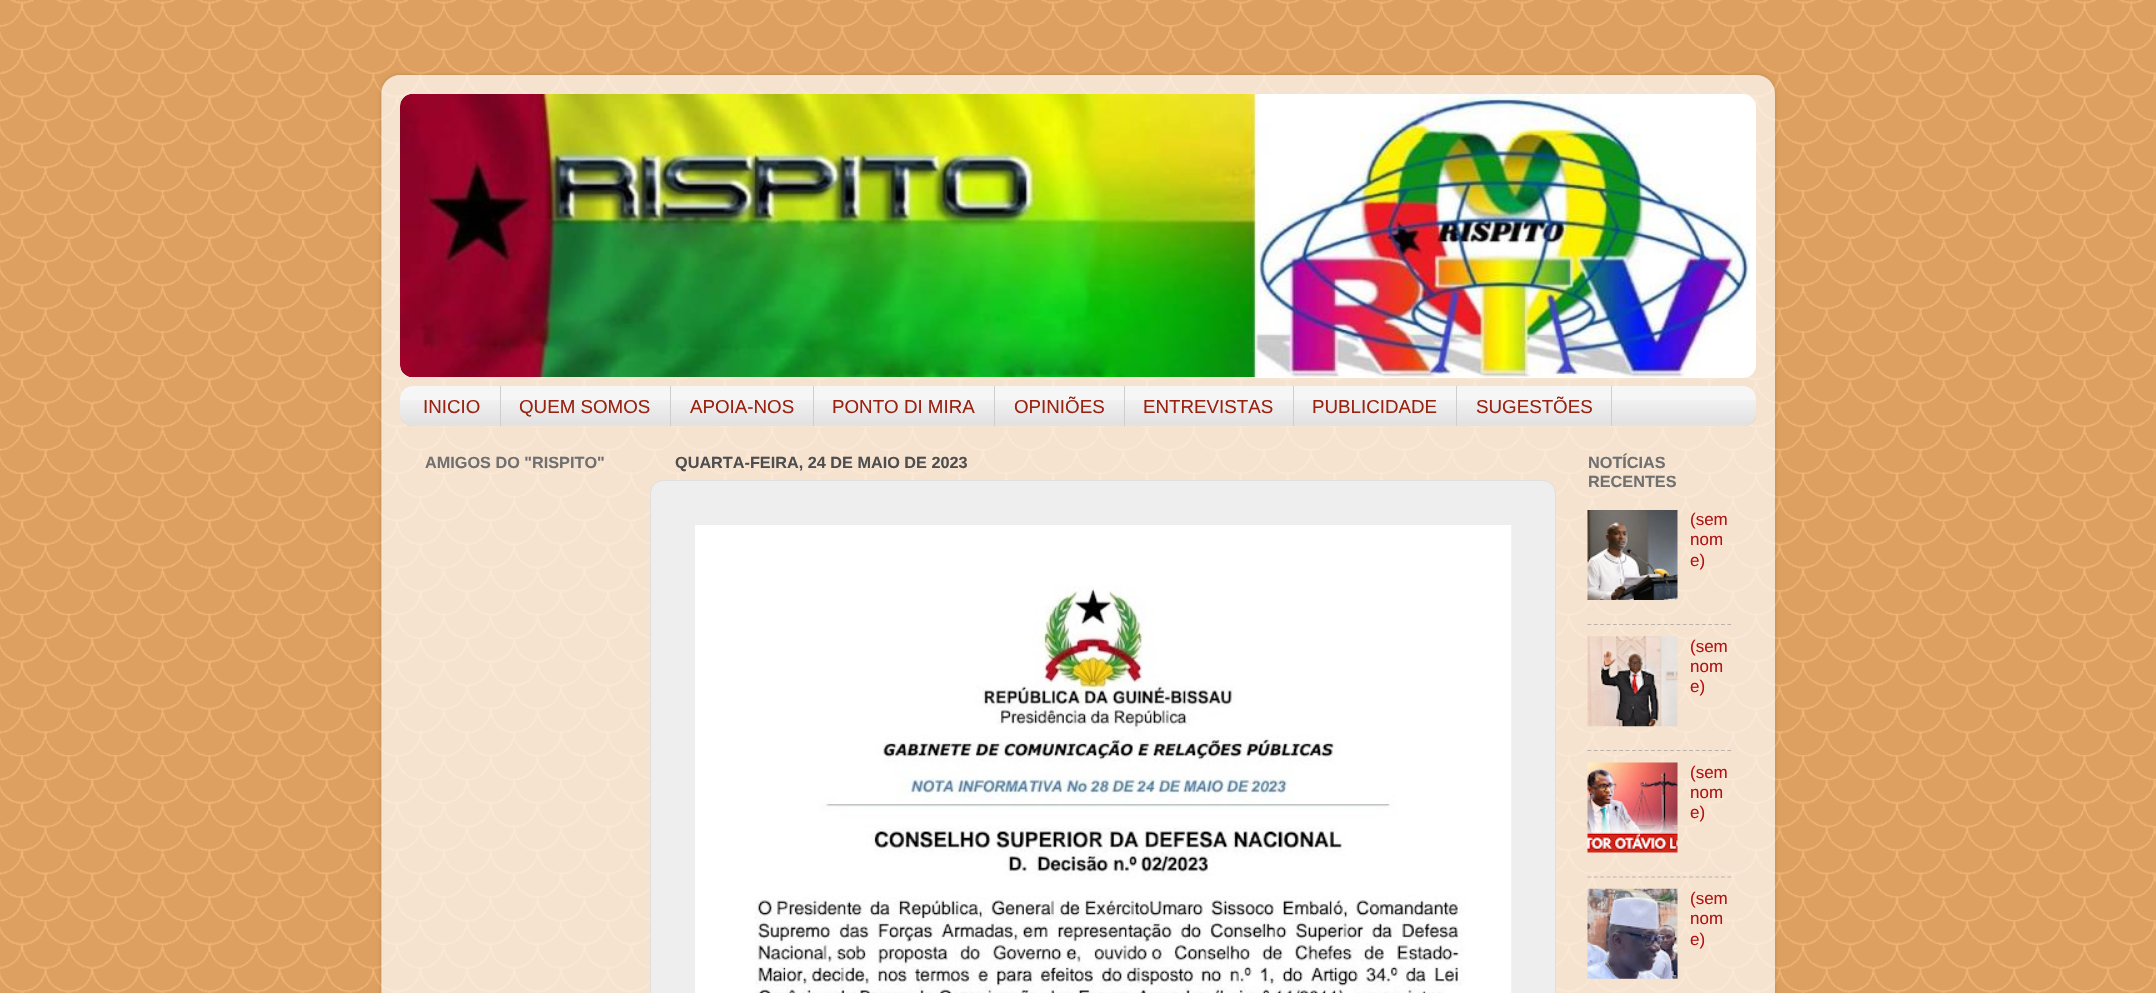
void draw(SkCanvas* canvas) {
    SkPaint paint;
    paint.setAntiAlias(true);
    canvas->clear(0xFFF6B26B);
    canvas->drawImageRect(SkImages::DeferredFromEncodedData(SkData::MakeFromFileName("img1.png")), SkRect::MakeXYWH(0, 0, 2156, 993), SkSamplingOptions());
    canvas->save();
    canvas->clipPath(SkPathBuilder(SkPathFillType::kEvenOdd).moveTo(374, 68).lineTo(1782, 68).lineTo(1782, 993).lineTo(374, 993).close().moveTo(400, 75).lineTo(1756, 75).cubicTo(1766.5f, 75, 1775, 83.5f, 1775, 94).lineTo(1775, 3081).cubicTo(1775, 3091.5f, 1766.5f, 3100, 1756, 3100).lineTo(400, 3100).cubicTo(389.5f, 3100, 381, 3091.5f, 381, 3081).lineTo(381, 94).cubicTo(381, 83.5f, 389.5f, 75, 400, 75).close().detach(), true);
    paint.setColor(0x26000000);
    paint.setMaskFilter(SkMaskFilter::MakeBlur(kNormal_SkBlurStyle, 2));
    canvas->drawRoundRect(SkRect::MakeXYWH(381, 75, 1394, 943), 19, 19, paint);
    paint.setMaskFilter(nullptr);
    canvas->restore();
    canvas->drawImageRect(SkImages::DeferredFromEncodedData(SkData::MakeFromFileName("img2.png")), SkRect::MakeXYWH(381, 75, 1394, 918), SkSamplingOptions());
    paint.setColor(0xFFFFFFFF);
    canvas->drawRoundRect(SkRect::MakeXYWH(400, 94, 1356, 284), 13, 13, paint);
    canvas->drawImageRect(SkImages::DeferredFromEncodedData(SkData::MakeFromFileName("img3.png")), SkRect::MakeXYWH(400, 94, 1350, 284), SkSamplingOptions());
    paint.setColor(0xFFF6F6F6);
    canvas->drawRoundRect(SkRect::MakeXYWH(400, 386, 1356, 40), 13, 13, paint);
    canvas->drawImageRect(SkImages::DeferredFromEncodedData(SkData::MakeFromFileName("img4.png")), SkRect::MakeXYWH(400, 400, 1356, 26), SkSamplingOptions());
    paint.setColor(0xFFCECECE);
    canvas->drawRect(SkRect::MakeXYWH(500, 386, 1, 40), paint);
    SkFont font1(fontMgr->matchFamilyStyle("Liberation Sans", SkFontStyle::Normal()), 18.75f);
    font1.setSubpixel(true);
    paint.setColor(0xFF992211);
    canvas->drawString("INICIO", 423, 413, font1, paint);
    paint.setColor(0xFFCECECE);
    canvas->drawRect(SkRect::MakeXYWH(670, 386, 1, 40), paint);
    paint.setColor(0xFF992211);
    canvas->drawString("QUEM SOMOS", 519, 413, font1, paint);
    paint.setColor(0xFFCECECE);
    canvas->drawRect(SkRect::MakeXYWH(813, 386, 1, 40), paint);
    paint.setColor(0xFF992211);
    canvas->drawString("APOIA-NOS", 690, 413, font1, paint);
    paint.setColor(0xFFCECECE);
    canvas->drawRect(SkRect::MakeXYWH(994, 386, 1, 40), paint);
    paint.setColor(0xFF992211);
    canvas->drawString("PONTO DI MIRA", 832, 413, font1, paint);
    paint.setColor(0xFFCECECE);
    canvas->drawRect(SkRect::MakeXYWH(1124, 386, 1, 40), paint);
    paint.setColor(0xFF992211);
    canvas->drawString("OPINIÕES", 1014, 413, font1, paint);
    paint.setColor(0xFFCECECE);
    canvas->drawRect(SkRect::MakeXYWH(1293, 386, 1, 40), paint);
    paint.setColor(0xFF992211);
    canvas->drawString("ENTREVISTAS", 1143, 413, font1, paint);
    paint.setColor(0xFFCECECE);
    canvas->drawRect(SkRect::MakeXYWH(1456, 386, 1, 40), paint);
    paint.setColor(0xFF992211);
    canvas->drawString("PUBLICIDADE", 1312, 413, font1, paint);
    paint.setColor(0xFFCECECE);
    canvas->drawRect(SkRect::MakeXYWH(1611, 386, 1, 40), paint);
    paint.setColor(0xFF992211);
    canvas->drawString("SUGESTÕES", 1476, 413, font1, paint);
    SkFont font2(fontMgr->matchFamilyStyle("Liberation Sans", SkFontStyle::Bold()), 16.25f);
    font2.setSubpixel(true);
    paint.setColor(0xFF707070);
    canvas->drawString("AMIGOS DO \"RISPITO\"", 425, 468, font2, paint);
    paint.setColor(0xFF4E4E4E);
    canvas->drawString("QUARTA-FEIRA, 24 DE MAIO DE 2023", 675, 468, font2, paint);
    paint.setColor(0xFFEEEEEE);
    canvas->drawRoundRect(SkRect::MakeXYWH(650.5f, 480.5f, 905, 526), 12.5f, 12.5f, paint);
    paint.setStyle(SkPaint::kStroke_Style);
    paint.setStrokeWidth(1);
    paint.setColor(0xFFDFDFDF);
    canvas->drawRoundRect(SkRect::MakeXYWH(650.5f, 480.5f, 905, 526), 12.5f, 12.5f, paint);
    canvas->drawImageRect(SkImages::DeferredFromEncodedData(SkData::MakeFromFileName("img5.png")), SkRect::MakeXYWH(695, 525, 817, 468), SkSamplingOptions());
    paint.setStyle(SkPaint::kFill_Style);
    paint.setColor(0xFF707070);
    canvas->drawString("NOTÍCIAS", 1588, 468, font2, paint);
    canvas->drawString("RECENTES", 1588, 487, font2, paint);
    canvas->drawImageRect(SkImages::DeferredFromEncodedData(SkData::MakeFromFileName("img6.png")), SkRect::MakeXYWH(1587, 510, 91, 90), SkSamplingOptions());
    SkFont font3(fontMgr->matchFamilyStyle("Liberation Sans", SkFontStyle::Normal()), 17);
    font3.setSubpixel(true);
    paint.setColor(0xFFB11313);
    canvas->drawString("(sem", 1690, 525, font3, paint);
    canvas->drawString("nom", 1690, 545, font3, paint);
    canvas->drawString("e)", 1690, 566, font3, paint);
    paint.setStyle(SkPaint::kStroke_Style);
    paint.setStrokeWidth(1.2f);
    paint.setColor(0x80808080);
    paint.setPathEffect(SkDashPathEffect::Make({{3.75f, 2.61f}}, 0));
    canvas->drawPath(SkPathBuilder().moveTo(1587.5f, 624.5f).lineTo(1731, 624.5f).detach(), paint);
    paint.setPathEffect(nullptr);
    canvas->drawImageRect(SkImages::DeferredFromEncodedData(SkData::MakeFromFileName("img7.png")), SkRect::MakeXYWH(1587, 636, 91, 91), SkSamplingOptions());
    paint.setStyle(SkPaint::kFill_Style);
    paint.setColor(0xFFB11313);
    canvas->drawString("(sem", 1690, 652, font3, paint);
    canvas->drawString("nom", 1690, 672, font3, paint);
    canvas->drawString("e)", 1690, 692, font3, paint);
    paint.setStyle(SkPaint::kStroke_Style);
    paint.setColor(0x80808080);
    paint.setPathEffect(SkDashPathEffect::Make({{3.75f, 2.61f}}, 0));
    canvas->drawPath(SkPathBuilder().moveTo(1587.5f, 750.5f).lineTo(1731, 750.5f).detach(), paint);
    paint.setPathEffect(nullptr);
    canvas->drawImageRect(SkImages::DeferredFromEncodedData(SkData::MakeFromFileName("img8.png")), SkRect::MakeXYWH(1587, 762, 91, 91), SkSamplingOptions());
    paint.setStyle(SkPaint::kFill_Style);
    paint.setColor(0xFFB11313);
    canvas->drawString("(sem", 1690, 778, font3, paint);
    canvas->drawString("nom", 1690, 798, font3, paint);
    canvas->drawString("e)", 1690, 818, font3, paint);
    paint.setStyle(SkPaint::kStroke_Style);
    paint.setColor(0x80808080);
    paint.setPathEffect(SkDashPathEffect::Make({{3.75f, 2.61f}}, 0));
    canvas->drawPath(SkPathBuilder().moveTo(1587.5f, 877).lineTo(1731, 877).detach(), paint);
    paint.setPathEffect(nullptr);
    canvas->drawImageRect(SkImages::DeferredFromEncodedData(SkData::MakeFromFileName("img9.png")), SkRect::MakeXYWH(1587, 888, 91, 91), SkSamplingOptions());
    paint.setStyle(SkPaint::kFill_Style);
    paint.setColor(0xFFB11313);
    canvas->drawString("(sem", 1690, 904, font3, paint);
    canvas->drawString("nom", 1690, 924, font3, paint);
    canvas->drawString("e)", 1690, 945, font3, paint);
}
